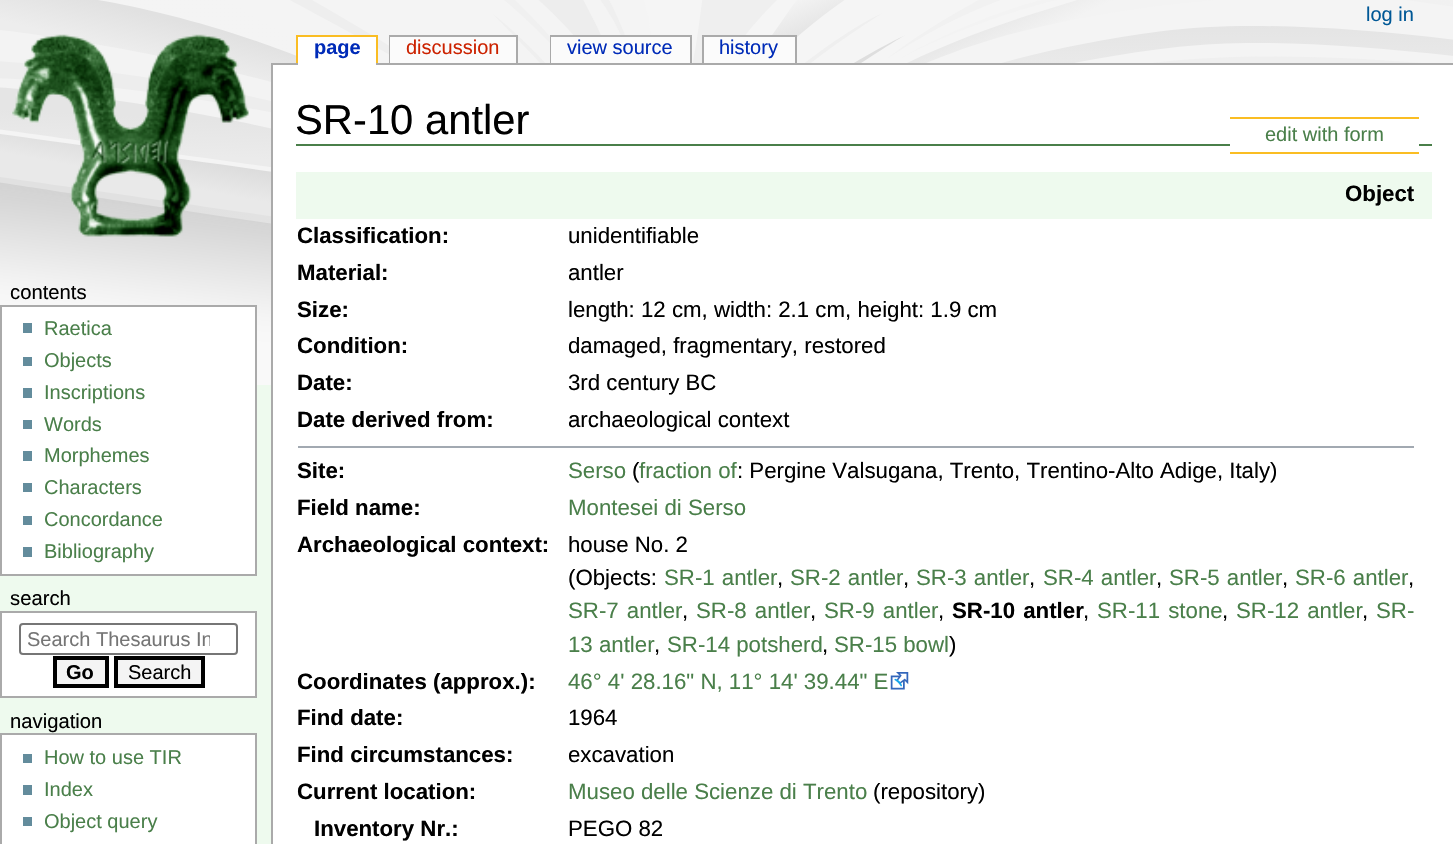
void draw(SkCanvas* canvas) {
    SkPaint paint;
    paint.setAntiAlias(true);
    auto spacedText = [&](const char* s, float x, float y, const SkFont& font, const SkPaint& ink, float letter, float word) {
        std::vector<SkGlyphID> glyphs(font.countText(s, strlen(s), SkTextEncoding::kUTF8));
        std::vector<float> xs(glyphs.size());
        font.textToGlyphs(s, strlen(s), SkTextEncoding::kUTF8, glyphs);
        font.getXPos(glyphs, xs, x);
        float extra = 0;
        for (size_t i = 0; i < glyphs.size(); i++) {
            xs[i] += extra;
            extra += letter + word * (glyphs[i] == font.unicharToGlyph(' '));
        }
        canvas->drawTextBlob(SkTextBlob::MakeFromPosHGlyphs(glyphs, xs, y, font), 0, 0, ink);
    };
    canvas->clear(0xFFEEFAEE);
    canvas->drawImageRect(SkImages::DeferredFromEncodedData(SkData::MakeFromFileName("img1.png")), SkRect::MakeXYWH(0, 0, 1453, 385), SkSamplingOptions());
    SkFont font1(fontMgr->matchFamilyStyle("Liberation Sans", SkFontStyle::Normal()), 20);
    font1.setSubpixel(true);
    paint.setColor(0xFF005896);
    canvas->drawString("log in", 1366, 21, font1, paint);
    canvas->drawImageRect(SkImages::DeferredFromEncodedData(SkData::MakeFromFileName("img2.png")), SkRect::MakeXYWH(12, 34, 237, 203), SkSamplingOptions());
    paint.setColor(0xFFAAAAAA);
    canvas->drawRect(SkRect::MakeXYWH(271, 63, 1182, 2), paint);
    paint.setColor(0xFFFFFFFF);
    canvas->drawRect(SkRect::MakeXYWH(298, 37, 78, 28), paint);
    SkFont font2(fontMgr->matchFamilyStyle("Liberation Sans", SkFontStyle::Bold()), 20);
    font2.setSubpixel(true);
    paint.setColor(0xFF002BB8);
    canvas->drawString("page", 314, 54, font2, paint);
    paint.setColor(0xFFFABD23);
    canvas->drawRect(SkRect::MakeXYWH(296, 35, 82, 2), paint);
    canvas->drawRect(SkRect::MakeXYWH(376, 35, 2, 28), paint);
    canvas->drawRect(SkRect::MakeXYWH(296, 35, 2, 28), paint);
    paint.setColor(0xFFAAAAAA);
    canvas->drawRect(SkRect::MakeXYWH(389, 35, 129, 2), paint);
    canvas->drawRect(SkRect::MakeXYWH(389, 35, 2, 28), paint);
    paint.setColor(0xFFFBFBFB);
    canvas->drawRect(SkRect::MakeXYWH(390, 37, 126, 26), paint);
    paint.setColor(0xFFCC2200);
    canvas->drawString("discussion", 406, 54, font1, paint);
    paint.setColor(0xFFAAAAAA);
    canvas->drawRect(SkRect::MakeXYWH(516, 35, 2, 28), paint);
    canvas->drawRect(SkRect::MakeXYWH(550, 35, 141, 2), paint);
    canvas->drawRect(SkRect::MakeXYWH(550, 35, 2, 28), paint);
    paint.setColor(0xFFFBFBFB);
    canvas->drawRect(SkRect::MakeXYWH(551, 37, 139, 26), paint);
    paint.setColor(0xFF002BB8);
    canvas->drawString("view source", 567, 54, font1, paint);
    paint.setColor(0xFFAAAAAA);
    canvas->drawRect(SkRect::MakeXYWH(690, 35, 2, 28), paint);
    paint.setColor(0xFFFBFBFB);
    canvas->drawRect(SkRect::MakeXYWH(704, 37, 91, 26), paint);
    paint.setColor(0xFF002BB8);
    canvas->drawString("history", 719, 54, font1, paint);
    paint.setColor(0xFFAAAAAA);
    canvas->drawRect(SkRect::MakeXYWH(702, 35, 94, 2), paint);
    canvas->drawRect(SkRect::MakeXYWH(795, 35, 2, 28), paint);
    canvas->drawRect(SkRect::MakeXYWH(702, 35, 2, 28), paint);
    SkFont font3(fontMgr->matchFamilyStyle("Liberation Sans", SkFontStyle::Normal()), 20.25f);
    font3.setSubpixel(true);
    paint.setColor(0xFF000000);
    canvas->drawString("contents", 10, 299, font3, paint);
    paint.setColor(0xFFFFFFFF);
    canvas->drawRect(SkRect::MakeXYWH(1, 306, 255, 269), paint);
    paint.setStyle(SkPaint::kStroke_Style);
    paint.setStrokeWidth(2);
    paint.setColor(0xFFAAAAAA);
    canvas->drawRect(SkRect::MakeXYWH(1, 306, 255, 269), paint);
    paint.setStyle(SkPaint::kFill_Style);
    paint.setColor(0xFF638C9C);
    canvas->drawRect(SkRect::MakeXYWH(23, 323, 9, 10), paint);
    paint.setColor(0xFF4A7F4A);
    canvas->drawString("Raetica", 44, 335, font1, paint);
    paint.setColor(0xFF638C9C);
    canvas->drawRect(SkRect::MakeXYWH(23, 357, 9, 9), paint);
    paint.setColor(0xFF4A7F4A);
    canvas->drawString("Objects", 44, 367, font1, paint);
    paint.setColor(0xFF638C9C);
    canvas->drawRect(SkRect::MakeXYWH(23, 388, 9, 10), paint);
    paint.setColor(0xFF4A7F4A);
    canvas->drawString("Inscriptions", 44, 399, font1, paint);
    paint.setColor(0xFF638C9C);
    canvas->drawRect(SkRect::MakeXYWH(23, 420, 9, 9), paint);
    paint.setColor(0xFF4A7F4A);
    canvas->drawString("Words", 44, 431, font1, paint);
    paint.setColor(0xFF638C9C);
    canvas->drawRect(SkRect::MakeXYWH(23, 451, 9, 10), paint);
    paint.setColor(0xFF4A7F4A);
    canvas->drawString("Morphemes", 44, 462, font1, paint);
    paint.setColor(0xFF638C9C);
    canvas->drawRect(SkRect::MakeXYWH(23, 483, 9, 9), paint);
    paint.setColor(0xFF4A7F4A);
    canvas->drawString("Characters", 44, 494, font1, paint);
    paint.setColor(0xFF638C9C);
    canvas->drawRect(SkRect::MakeXYWH(23, 516, 9, 9), paint);
    paint.setColor(0xFF4A7F4A);
    canvas->drawString("Concordance", 44, 526, font1, paint);
    paint.setColor(0xFF638C9C);
    canvas->drawRect(SkRect::MakeXYWH(23, 547, 9, 10), paint);
    paint.setColor(0xFF4A7F4A);
    canvas->drawString("Bibliography", 44, 558, font1, paint);
    paint.setColor(0xFF000000);
    canvas->drawString("search", 10, 605, font3, paint);
    paint.setColor(0xFFFFFFFF);
    canvas->drawRect(SkRect::MakeXYWH(1, 612, 255, 85), paint);
    paint.setStyle(SkPaint::kStroke_Style);
    paint.setColor(0xFFAAAAAA);
    canvas->drawRect(SkRect::MakeXYWH(1, 612, 255, 85), paint);
    paint.setColor(0xFF767676);
    canvas->drawRoundRect(SkRect::MakeXYWH(20, 624, 217, 30), 3, 3, paint);
    canvas->save();
    canvas->clipRect(SkRect::MakeXYWH(26, 628, 184, 21));
    paint.setStyle(SkPaint::kFill_Style);
    paint.setColor(0xFF757575);
    canvas->drawString("Search Thesaurus In", 27, 646, font1, paint);
    canvas->restore();
    paint.setColor(0xFFF4F4F4);
    canvas->drawRect(SkRect::MakeXYWH(55, 658, 52, 28), paint);
    paint.setStyle(SkPaint::kStroke_Style);
    paint.setStrokeWidth(4);
    paint.setColor(0xFF000000);
    canvas->drawRect(SkRect::MakeXYWH(55, 658, 52, 28), paint);
    paint.setStyle(SkPaint::kFill_Style);
    canvas->drawString("Go", 66, 679, font2, paint);
    paint.setColor(0xFFF4F4F4);
    canvas->drawRect(SkRect::MakeXYWH(116, 658, 87, 28), paint);
    paint.setStyle(SkPaint::kStroke_Style);
    paint.setColor(0xFF000000);
    canvas->drawRect(SkRect::MakeXYWH(116, 658, 87, 28), paint);
    paint.setStyle(SkPaint::kFill_Style);
    canvas->drawString("Search", 128, 679, font1, paint);
    canvas->drawString("navigation", 10, 728, font3, paint);
    paint.setColor(0xFFFFFFFF);
    canvas->drawRect(SkRect::MakeXYWH(1, 734, 255, 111), paint);
    paint.setStyle(SkPaint::kStroke_Style);
    paint.setStrokeWidth(2);
    paint.setColor(0xFFAAAAAA);
    canvas->drawRect(SkRect::MakeXYWH(1, 734, 255, 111), paint);
    paint.setStyle(SkPaint::kFill_Style);
    paint.setColor(0xFF638C9C);
    canvas->drawRect(SkRect::MakeXYWH(23, 754, 9, 9), paint);
    paint.setColor(0xFF4A7F4A);
    canvas->drawString("How to use TIR", 44, 764, font1, paint);
    paint.setColor(0xFF638C9C);
    canvas->drawRect(SkRect::MakeXYWH(23, 785, 9, 10), paint);
    paint.setColor(0xFF4A7F4A);
    canvas->drawString("Index", 44, 796, font1, paint);
    paint.setColor(0xFF638C9C);
    canvas->drawRect(SkRect::MakeXYWH(23, 817, 9, 9), paint);
    paint.setColor(0xFF4A7F4A);
    canvas->drawString("Object query", 44, 828, font1, paint);
    paint.setColor(0xFFFFFFFF);
    canvas->drawRect(SkRect::MakeXYWH(273, 65, 1180, 779), paint);
    paint.setColor(0xFFAAAAAA);
    canvas->drawRect(SkRect::MakeXYWH(271, 63, 2, 781), paint);
    paint.setColor(0xFF4A7F4A);
    canvas->drawRect(SkRect::MakeXYWH(296, 144, 1136, 2), paint);
    SkFont font4(fontMgr->matchFamilyStyle("Liberation Sans", SkFontStyle::Normal()), 41.75f);
    font4.setSubpixel(true);
    paint.setColor(0xFF000000);
    canvas->drawString("SR-10 antler", 295, 134, font4, paint);
    paint.setColor(0xFFFFFFFF);
    canvas->drawRect(SkRect::MakeXYWH(1230, 144, 189, 2), paint);
    paint.setColor(0xFFFABD23);
    canvas->drawRect(SkRect::MakeXYWH(1230, 117, 189, 2), paint);
    canvas->drawRect(SkRect::MakeXYWH(1230, 152, 189, 2), paint);
    paint.setColor(0xFF4A7F4A);
    canvas->drawString("edit with form", 1265, 141, font1, paint);
    paint.setColor(0xFFEEFAEE);
    canvas->drawRect(SkRect::MakeXYWH(296, 172, 1136, 47), paint);
    SkFont font5(fontMgr->matchFamilyStyle("Liberation Sans", SkFontStyle::Bold()), 22.25f);
    font5.setSubpixel(true);
    paint.setColor(0xFF000000);
    canvas->drawString("Object", 1345, 201, font5, paint);
    canvas->drawString("Classification:", 297, 243, font5, paint);
    SkFont font6(fontMgr->matchFamilyStyle("Liberation Sans", SkFontStyle::Normal()), 22.25f);
    font6.setSubpixel(true);
    canvas->drawString("unidentifiable", 568, 243, font6, paint);
    canvas->drawString("Material:", 297, 280, font5, paint);
    canvas->drawString("antler", 568, 280, font6, paint);
    canvas->drawString("Size:", 297, 317, font5, paint);
    canvas->drawString("length: 12 cm, width: 2.1 cm, height: 1.9 cm", 568, 317, font6, paint);
    canvas->drawString("Condition:", 297, 353, font5, paint);
    canvas->drawString("damaged, fragmentary, restored", 568, 353, font6, paint);
    canvas->drawString("Date:", 297, 390, font5, paint);
    canvas->drawString("3rd century BC", 568, 390, font6, paint);
    canvas->drawString("Date derived from:", 297, 427, font5, paint);
    canvas->drawString("archaeological context", 568, 427, font6, paint);
    paint.setColor(0xFFA2A9B1);
    canvas->drawRect(SkRect::MakeXYWH(298, 446, 1116, 2), paint);
    paint.setColor(0xFF000000);
    canvas->drawString("Site:", 297, 478, font5, paint);
    paint.setColor(0xFF4A7F4A);
    canvas->drawString("Serso", 568, 478, font6, paint);
    paint.setColor(0xFF000000);
    canvas->drawString("(", 632, 478, font6, paint);
    paint.setColor(0xFF4A7F4A);
    canvas->drawString("fraction of", 639, 478, font6, paint);
    paint.setColor(0xFF000000);
    canvas->drawString(": Pergine Valsugana, Trento, Trentino-Alto Adige, Italy)", 737, 478, font6, paint);
    canvas->drawString("Field name:", 297, 515, font5, paint);
    paint.setColor(0xFF4A7F4A);
    canvas->drawString("Montesei di Serso", 568, 515, font6, paint);
    paint.setColor(0xFF000000);
    canvas->drawString("Archaeological context:", 297, 552, font5, paint);
    canvas->drawString("house No. 2", 568, 552, font6, paint);
    canvas->drawString("(Objects:", 568, 585, font6, paint);
    paint.setColor(0xFF4A7F4A);
    spacedText("SR-1 antler", 664, 585, font6, paint, 0, 1);
    paint.setColor(0xFF000000);
    canvas->drawString(",", 777, 585, font6, paint);
    paint.setColor(0xFF4A7F4A);
    spacedText("SR-2 antler", 790, 585, font6, paint, 0, 1);
    paint.setColor(0xFF000000);
    canvas->drawString(",", 903, 585, font6, paint);
    paint.setColor(0xFF4A7F4A);
    spacedText("SR-3 antler", 916, 585, font6, paint, 0, 1);
    paint.setColor(0xFF000000);
    canvas->drawString(",", 1029, 585, font6, paint);
    paint.setColor(0xFF4A7F4A);
    spacedText("SR-4 antler", 1043, 585, font6, paint, 0, 1);
    paint.setColor(0xFF000000);
    canvas->drawString(",", 1156, 585, font6, paint);
    paint.setColor(0xFF4A7F4A);
    spacedText("SR-5 antler", 1169, 585, font6, paint, 0, 1);
    paint.setColor(0xFF000000);
    canvas->drawString(",", 1282, 585, font6, paint);
    paint.setColor(0xFF4A7F4A);
    spacedText("SR-6 antler", 1295, 585, font6, paint, 0, 1);
    paint.setColor(0xFF000000);
    canvas->drawString(",", 1408, 585, font6, paint);
    paint.setColor(0xFF4A7F4A);
    spacedText("SR-7 antler", 568, 618, font6, paint, 0, 2);
    paint.setColor(0xFF000000);
    canvas->drawString(",", 682, 618, font6, paint);
    paint.setColor(0xFF4A7F4A);
    spacedText("SR-8 antler", 696, 618, font6, paint, 0, 2);
    paint.setColor(0xFF000000);
    canvas->drawString(",", 810, 618, font6, paint);
    paint.setColor(0xFF4A7F4A);
    spacedText("SR-9 antler", 824, 618, font6, paint, 0, 2);
    paint.setColor(0xFF000000);
    canvas->drawString(",", 938, 618, font6, paint);
    spacedText("SR-10 antler", 952, 618, font5, paint, 0, 2);
    canvas->drawString(",", 1083, 618, font6, paint);
    paint.setColor(0xFF4A7F4A);
    spacedText("SR-11 stone", 1097, 618, font6, paint, 0, 2);
    paint.setColor(0xFF000000);
    canvas->drawString(",", 1222, 618, font6, paint);
    paint.setColor(0xFF4A7F4A);
    spacedText("SR-12 antler", 1236, 618, font6, paint, 0, 2);
    paint.setColor(0xFF000000);
    canvas->drawString(",", 1362, 618, font6, paint);
    paint.setColor(0xFF4A7F4A);
    canvas->drawString("SR-", 1376, 618, font6, paint);
    canvas->drawString("13 antler", 568, 652, font6, paint);
    paint.setColor(0xFF000000);
    canvas->drawString(",", 654, 652, font6, paint);
    paint.setColor(0xFF4A7F4A);
    canvas->drawString("SR-14 potsherd", 667, 652, font6, paint);
    paint.setColor(0xFF000000);
    canvas->drawString(",", 822, 652, font6, paint);
    paint.setColor(0xFF4A7F4A);
    canvas->drawString("SR-15 bowl", 834, 652, font6, paint);
    paint.setColor(0xFF000000);
    canvas->drawString(")", 949, 652, font6, paint);
    canvas->drawString("Coordinates (approx.):", 297, 689, font5, paint);
    paint.setColor(0xFF4A7F4A);
    canvas->drawString("46° 4' 28.16\" N, 11° 14' 39.44\" E", 568, 689, font6, paint);
    canvas->drawImageRect(SkImages::DeferredFromEncodedData(SkData::MakeFromFileName("img3.png")), SkRect::MakeXYWH(890, 672, 19, 18), SkSamplingOptions());
    paint.setColor(0xFF000000);
    canvas->drawString("Find date:", 297, 725, font5, paint);
    canvas->drawString("1964", 568, 725, font6, paint);
    canvas->drawString("Find circumstances:", 297, 762, font5, paint);
    canvas->drawString("excavation", 568, 762, font6, paint);
    canvas->drawString("Current location:", 297, 799, font5, paint);
    paint.setColor(0xFF4A7F4A);
    canvas->drawString("Museo delle Scienze di Trento", 568, 799, font6, paint);
    paint.setColor(0xFF000000);
    canvas->drawString("(repository)", 873, 799, font6, paint);
    canvas->drawString("Inventory Nr.:", 314, 836, font5, paint);
    canvas->drawString("PEGO 82", 568, 836, font6, paint);
}
